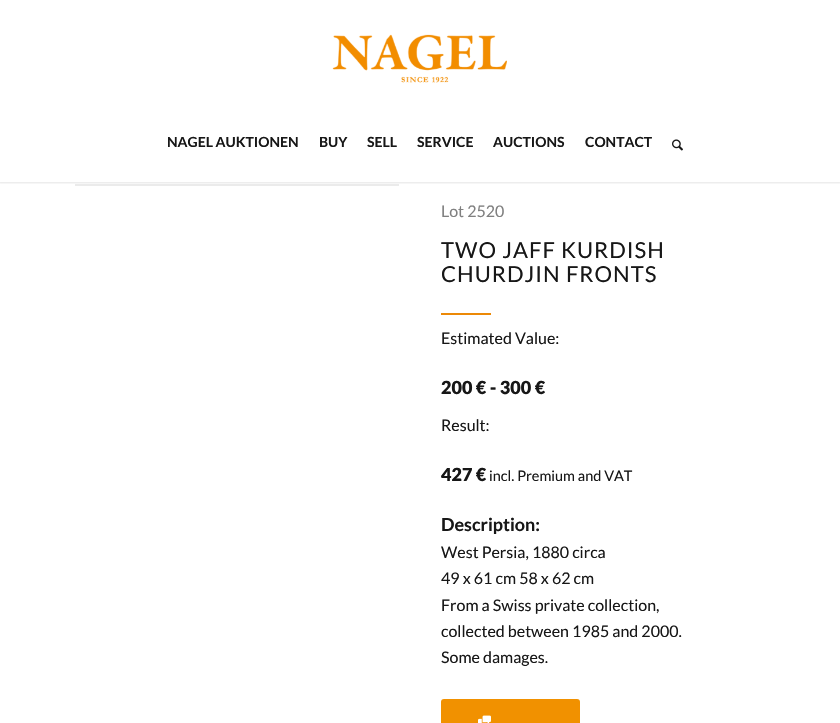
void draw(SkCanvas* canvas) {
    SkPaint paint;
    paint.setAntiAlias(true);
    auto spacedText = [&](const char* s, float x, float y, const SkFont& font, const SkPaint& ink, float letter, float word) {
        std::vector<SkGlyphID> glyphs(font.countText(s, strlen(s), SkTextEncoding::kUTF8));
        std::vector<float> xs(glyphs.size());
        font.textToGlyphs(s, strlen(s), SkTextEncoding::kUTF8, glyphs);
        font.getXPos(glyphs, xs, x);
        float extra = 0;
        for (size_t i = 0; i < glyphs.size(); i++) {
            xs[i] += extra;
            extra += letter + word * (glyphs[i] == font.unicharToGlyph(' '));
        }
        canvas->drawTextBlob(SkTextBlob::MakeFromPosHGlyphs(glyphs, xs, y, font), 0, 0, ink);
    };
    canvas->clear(0xFFFFFFFF);
    paint.setColor(0xFFEBEBEB);
    canvas->drawRect(SkRect::MakeXYWH(75, 184, 324, 2), paint);
    canvas->save();
    canvas->clipRect(SkRect::MakeXYWH(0, 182, 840, 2));
    paint.setColor(0x1A000000);
    paint.setMaskFilter(SkMaskFilter::MakeBlur(kNormal_SkBlurStyle, 1));
    canvas->drawRect(SkRect::MakeXYWH(-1, -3, 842, 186), paint);
    paint.setMaskFilter(nullptr);
    canvas->restore();
    canvas->drawImageRect(SkImages::DeferredFromEncodedData(SkData::MakeFromFileName("img1.png")), SkRect::MakeXYWH(332, 34, 175, 49), SkSamplingOptions());
    SkFont font1(fontMgr->matchFamilyStyle("Lato", SkFontStyle::Bold()), 14);
    font1.setSubpixel(true);
    paint.setColor(0xFF171717);
    canvas->drawString("NAGEL AUKTIONEN", 167, 147, font1, paint);
    canvas->drawString("BUY", 319, 147, font1, paint);
    canvas->drawString("SELL", 367, 147, font1, paint);
    canvas->drawString("SERVICE", 417, 147, font1, paint);
    canvas->drawString("AUCTIONS", 493, 147, font1, paint);
    canvas->drawString("CONTACT", 585, 147, font1, paint);
    canvas->drawImageRect(SkImages::DeferredFromEncodedData(SkData::MakeFromFileName("img2.png")), SkRect::MakeXYWH(672, 139, 11, 12), SkSamplingOptions());
    SkFont font2(fontMgr->matchFamilyStyle("Lato", SkFontStyle::Normal()), 16);
    font2.setSubpixel(true);
    paint.setColor(0xFF808080);
    canvas->drawString("Lot 2520", 441, 217, font2, paint);
    SkFont font3(fontMgr->matchFamilyStyle("Lato", SkFontStyle::Normal()), 22);
    font3.setSubpixel(true);
    paint.setColor(0xFF171717);
    spacedText("TWO JAFF KURDISH", 441, 258, font3, paint, 1, 0);
    spacedText("CHURDJIN FRONTS", 441, 282, font3, paint, 1, 0);
    paint.setColor(0xFFEC8907);
    canvas->drawRect(SkRect::MakeXYWH(441, 313, 50, 2), paint);
    paint.setColor(0xFF171717);
    canvas->drawString("Estimated Value:", 441, 344, font2, paint);
    SkFont font4(fontMgr->matchFamilyStyle("Lato", SkFontStyle(900, SkFontStyle::kNormal_Width, SkFontStyle::kUpright_Slant)), 18);
    font4.setSubpixel(true);
    canvas->drawString("200 € - 300 €", 441, 394, font4, paint);
    canvas->drawString("Result:", 441, 431, font2, paint);
    canvas->drawString("427 €", 441, 481, font4, paint);
    SkFont font5(fontMgr->matchFamilyStyle("Lato", SkFontStyle::Normal()), 14.5f);
    font5.setSubpixel(true);
    canvas->drawString("incl. Premium and VAT", 489, 481, font5, paint);
    SkFont font6(fontMgr->matchFamilyStyle("Lato", SkFontStyle::Bold()), 18);
    font6.setSubpixel(true);
    canvas->drawString("Description:", 441, 531, font6, paint);
    canvas->drawString("West Persia, 1880 circa", 441, 558, font2, paint);
    canvas->drawString("49 x 61 cm 58 x 62 cm", 441, 584, font2, paint);
    canvas->drawString("From a Swiss private collection,", 441, 611, font2, paint);
    canvas->drawString("collected between 1985 and 2000.", 441, 637, font2, paint);
    canvas->drawString("Some damages.", 441, 663, font2, paint);
    paint.setColor(0xFFF19100);
    canvas->drawRoundRect(SkRect::MakeXYWH(441, 699, 139, 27), 3, 3, paint);
    canvas->drawImageRect(SkImages::DeferredFromEncodedData(SkData::MakeFromFileName("img3.png")), SkRect::MakeXYWH(478, 715, 13, 8), SkSamplingOptions());
}
